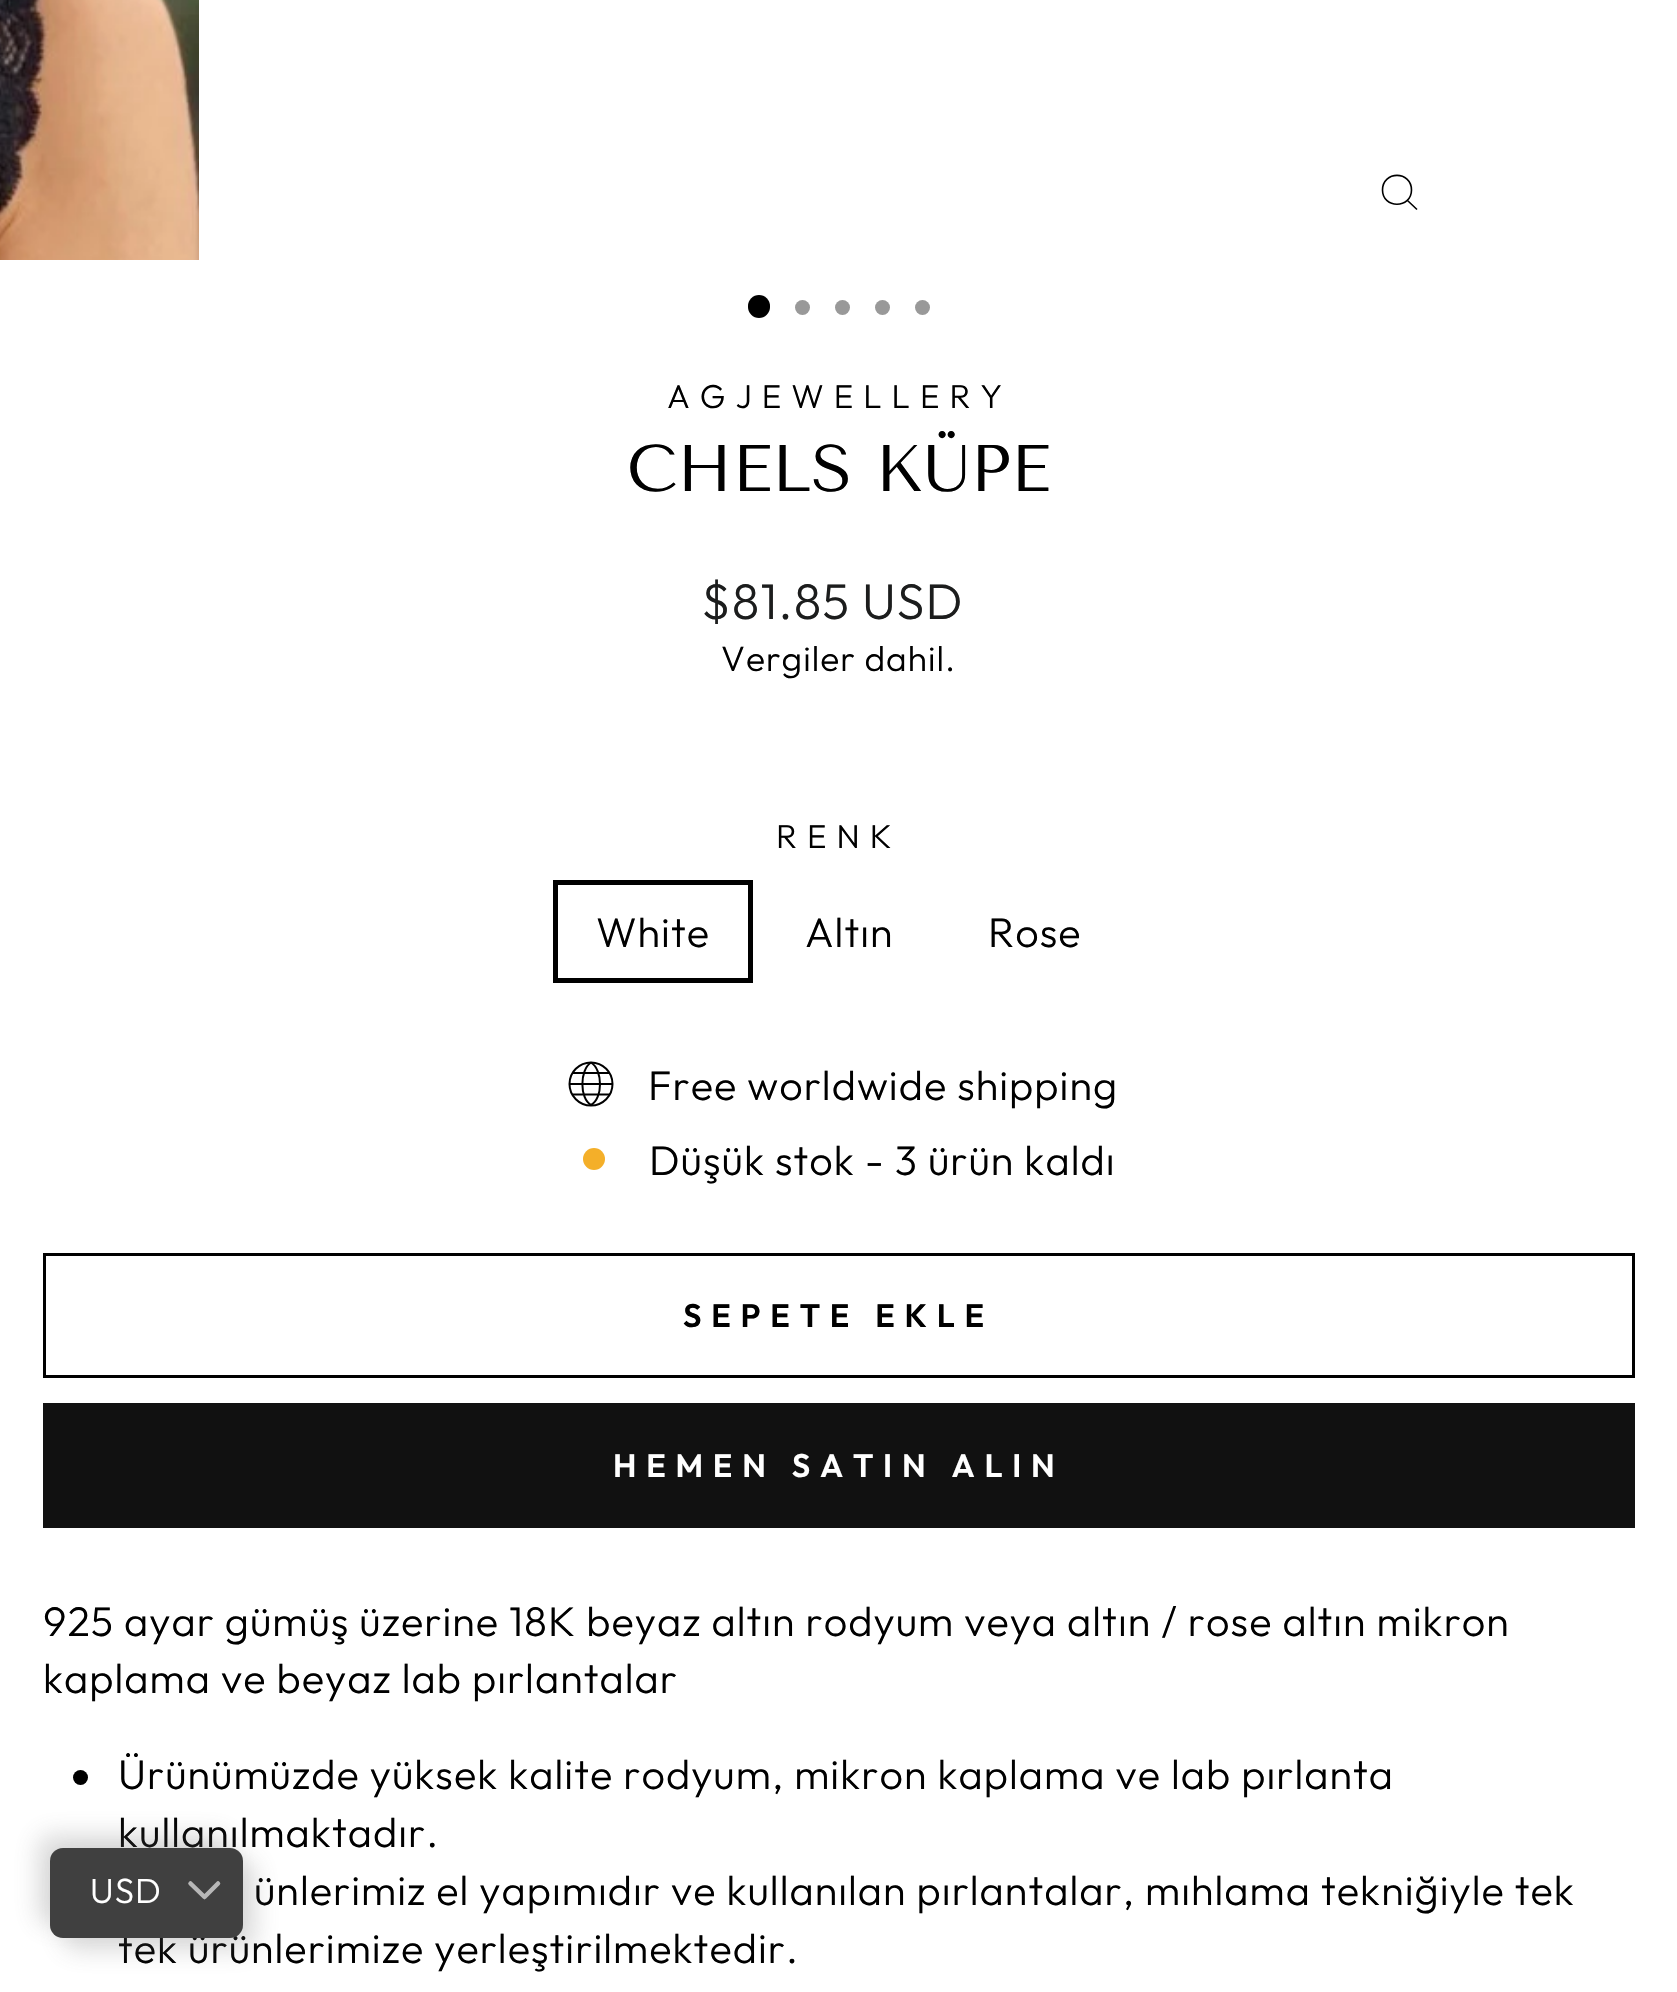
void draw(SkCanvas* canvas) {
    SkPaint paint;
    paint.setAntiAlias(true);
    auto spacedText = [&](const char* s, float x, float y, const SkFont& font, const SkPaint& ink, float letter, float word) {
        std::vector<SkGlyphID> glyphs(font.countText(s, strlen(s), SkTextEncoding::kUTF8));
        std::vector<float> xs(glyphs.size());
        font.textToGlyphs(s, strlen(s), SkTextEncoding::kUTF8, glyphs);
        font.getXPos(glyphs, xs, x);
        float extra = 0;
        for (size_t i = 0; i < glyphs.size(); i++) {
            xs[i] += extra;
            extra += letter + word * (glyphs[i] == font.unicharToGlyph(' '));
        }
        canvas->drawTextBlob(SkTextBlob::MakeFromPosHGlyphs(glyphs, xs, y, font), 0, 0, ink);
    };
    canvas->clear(0xFFFFFFFF);
    canvas->drawImageRect(SkImages::DeferredFromEncodedData(SkData::MakeFromFileName("img1.png")), SkRect::MakeXYWH(0, 0, 199, 260), SkSamplingOptions());
    paint.setStyle(SkPaint::kStroke_Style);
    paint.setStrokeWidth(1.6f);
    paint.setColor(0xFF000000);
    canvas->drawPath(SkPathBuilder().moveTo(1411.5f, 190).cubicTo(1411.5f, 209, 1382.5f, 209, 1382.5f, 190).cubicTo(1382.5f, 170.5f, 1411.5f, 170.5f, 1411.5f, 190).close().moveTo(1417, 209.5f).lineTo(1407.5f, 200.5f).detach(), paint);
    paint.setStyle(SkPaint::kFill_Style);
    canvas->drawRoundRect(SkRect::MakeXYWH(748, 295, 22, 23), 11, 11, paint);
    paint.setColor(0xFF999999);
    canvas->drawCircle(802.5f, 307.5f, 7.5f, paint);
    canvas->drawCircle(842.5f, 307.5f, 7.5f, paint);
    canvas->drawCircle(882.5f, 307.5f, 7.5f, paint);
    canvas->drawCircle(922.5f, 307.5f, 7.5f, paint);
    SkFont font1(fontMgr->matchFamilyStyle("Outfit", SkFontStyle(300, SkFontStyle::kNormal_Width, SkFontStyle::kUpright_Slant)), 33.1f);
    font1.setSubpixel(true);
    paint.setColor(0xFF000000);
    spacedText("AGJEWELLERY", 667, 408, font1, paint, 10, 0);
    SkFont font2(fontMgr->matchFamilyStyle("Tenor Sans", SkFontStyle::Normal()), 65.75f);
    font2.setSubpixel(true);
    canvas->drawString("CHELS KÜPE", 627, 491, font2, paint);
    SkFont font3(fontMgr->matchFamilyStyle("Outfit", SkFontStyle(300, SkFontStyle::kNormal_Width, SkFontStyle::kUpright_Slant)), 50);
    font3.setSubpixel(true);
    paint.setColor(0xFF1C1D1D);
    spacedText("$81.85 USD", 701, 619, font3, paint, 1.03f, 0);
    SkFont font4(fontMgr->matchFamilyStyle("Outfit", SkFontStyle(300, SkFontStyle::kNormal_Width, SkFontStyle::kUpright_Slant)), 35.25f);
    font4.setSubpixel(true);
    paint.setColor(0xFF000000);
    spacedText("Vergiler dahil.", 721, 671, font4, paint, 1.03f, 0);
    spacedText("RENK", 776, 848, font1, paint, 10, 0);
    paint.setStyle(SkPaint::kStroke_Style);
    paint.setStrokeWidth(5);
    canvas->drawRect(SkRect::MakeXYWH(555.5f, 882.5f, 195, 98), paint);
    SkFont font5(fontMgr->matchFamilyStyle("Outfit", SkFontStyle(300, SkFontStyle::kNormal_Width, SkFontStyle::kUpright_Slant)), 41.4f);
    font5.setSubpixel(true);
    paint.setStyle(SkPaint::kFill_Style);
    spacedText("White", 596, 947, font5, paint, 1.03f, 0);
    spacedText("Altın", 805, 947, font5, paint, 1.03f, 0);
    spacedText("Rose", 988, 947, font5, paint, 1.03f, 0);
    paint.setStyle(SkPaint::kStroke_Style);
    paint.setStrokeWidth(2);
    canvas->drawCircle(591, 1084, 21.5f, paint);
    canvas->drawPath(SkPathBuilder().moveTo(572.5f, 1073).lineTo(610, 1073).moveTo(570, 1084).lineTo(612.5f, 1084).moveTo(572.5f, 1094.5f).lineTo(610, 1094.5f).moveTo(591, 1062.5f).cubicTo(579.5f, 1070, 579.5f, 1098.5f, 591, 1105).moveTo(591, 1062.5f).cubicTo(603, 1070, 603, 1098.5f, 591, 1105).detach(), paint);
    paint.setStyle(SkPaint::kFill_Style);
    spacedText("Free worldwide shipping", 648, 1100, font5, paint, 1.03f, 0);
    paint.setColor(0xFFF4AF29);
    canvas->drawCircle(594, 1159, 11, paint);
    paint.setColor(0xFF000000);
    spacedText("Düşük stok - 3 ürün kaldı", 649, 1175, font5, paint, 1.03f, 0);
    paint.setStyle(SkPaint::kStroke_Style);
    paint.setStrokeWidth(3);
    canvas->drawRect(SkRect::MakeXYWH(44.5f, 1254.5f, 1589, 122), paint);
    SkFont font6(fontMgr->matchFamilyStyle("Outfit", SkFontStyle(600, SkFontStyle::kNormal_Width, SkFontStyle::kUpright_Slant)), 32.5f);
    font6.setSubpixel(true);
    paint.setStyle(SkPaint::kFill_Style);
    spacedText("SEPETE EKLE", 683, 1327, font6, paint, 9.75f, 0);
    paint.setColor(0xFF111111);
    canvas->drawRect(SkRect::MakeXYWH(43, 1403, 1592, 125), paint);
    paint.setColor(0xFFFFFFFF);
    spacedText("HEMEN SATIN ALIN", 613, 1477, font6, paint, 9.75f, 0);
    paint.setColor(0xFF000000);
    spacedText("925 ayar gümüş üzerine 18K beyaz altın rodyum veya altın / rose altın mikron", 43, 1636, font5, paint, 1.03f, 0);
    spacedText("kaplama ve beyaz lab pırlantalar", 43, 1693, font5, paint, 1.03f, 0);
    canvas->drawCircle(80.5f, 1777.5f, 7.5f, paint);
    spacedText("Ürünümüzde yüksek kalite rodyum, mikron kaplama ve lab pırlanta", 118, 1789, font5, paint, 1.03f, 0);
    spacedText("kullanılmaktadır.", 118, 1847, font5, paint, 1.03f, 0);
    spacedText("ünlerimiz el yapımıdır ve kullanılan pırlantalar, mıhlama tekniğiyle tek", 254, 1905, font5, paint, 1.03f, 0);
    spacedText("tek ürünlerimize yerleştirilmektedir.", 118, 1963, font5, paint, 1.03f, 0);
    paint.setColor(0x3D616161);
    paint.setMaskFilter(SkMaskFilter::MakeBlur(kNormal_SkBlurStyle, 12.5f));
    canvas->drawRoundRect(SkRect::MakeXYWH(38, 1835, 192, 90), 13, 13, paint);
    paint.setMaskFilter(nullptr);
    paint.setMaskFilter(SkMaskFilter::MakeBlur(kNormal_SkBlurStyle, 12.5f));
    canvas->drawRoundRect(SkRect::MakeXYWH(63, 1860, 192, 90), 13, 13, paint);
    paint.setMaskFilter(nullptr);
    paint.setColor(0xFF404040);
    canvas->drawRoundRect(SkRect::MakeXYWH(50, 1848, 193, 90), 13, 13, paint);
    SkFont font7(fontMgr->matchFamilyStyle("Outfit", SkFontStyle(300, SkFontStyle::kNormal_Width, SkFontStyle::kUpright_Slant)), 35);
    font7.setSubpixel(true);
    paint.setColor(0xFFFFFFFF);
    spacedText("USD", 90, 1903, font7, paint, 1.03f, 0);
    paint.setStyle(SkPaint::kStroke_Style);
    paint.setStrokeWidth(4.5f);
    paint.setStrokeCap(SkPaint::kRound_Cap);
    paint.setStrokeJoin(SkPaint::kRound_Join);
    paint.setColor(0xFFB7B7B7);
    canvas->drawPath(SkPathBuilder().moveTo(190.5f, 1883.5f).lineTo(204.5f, 1897).lineTo(218, 1883.5f).detach(), paint);
}
